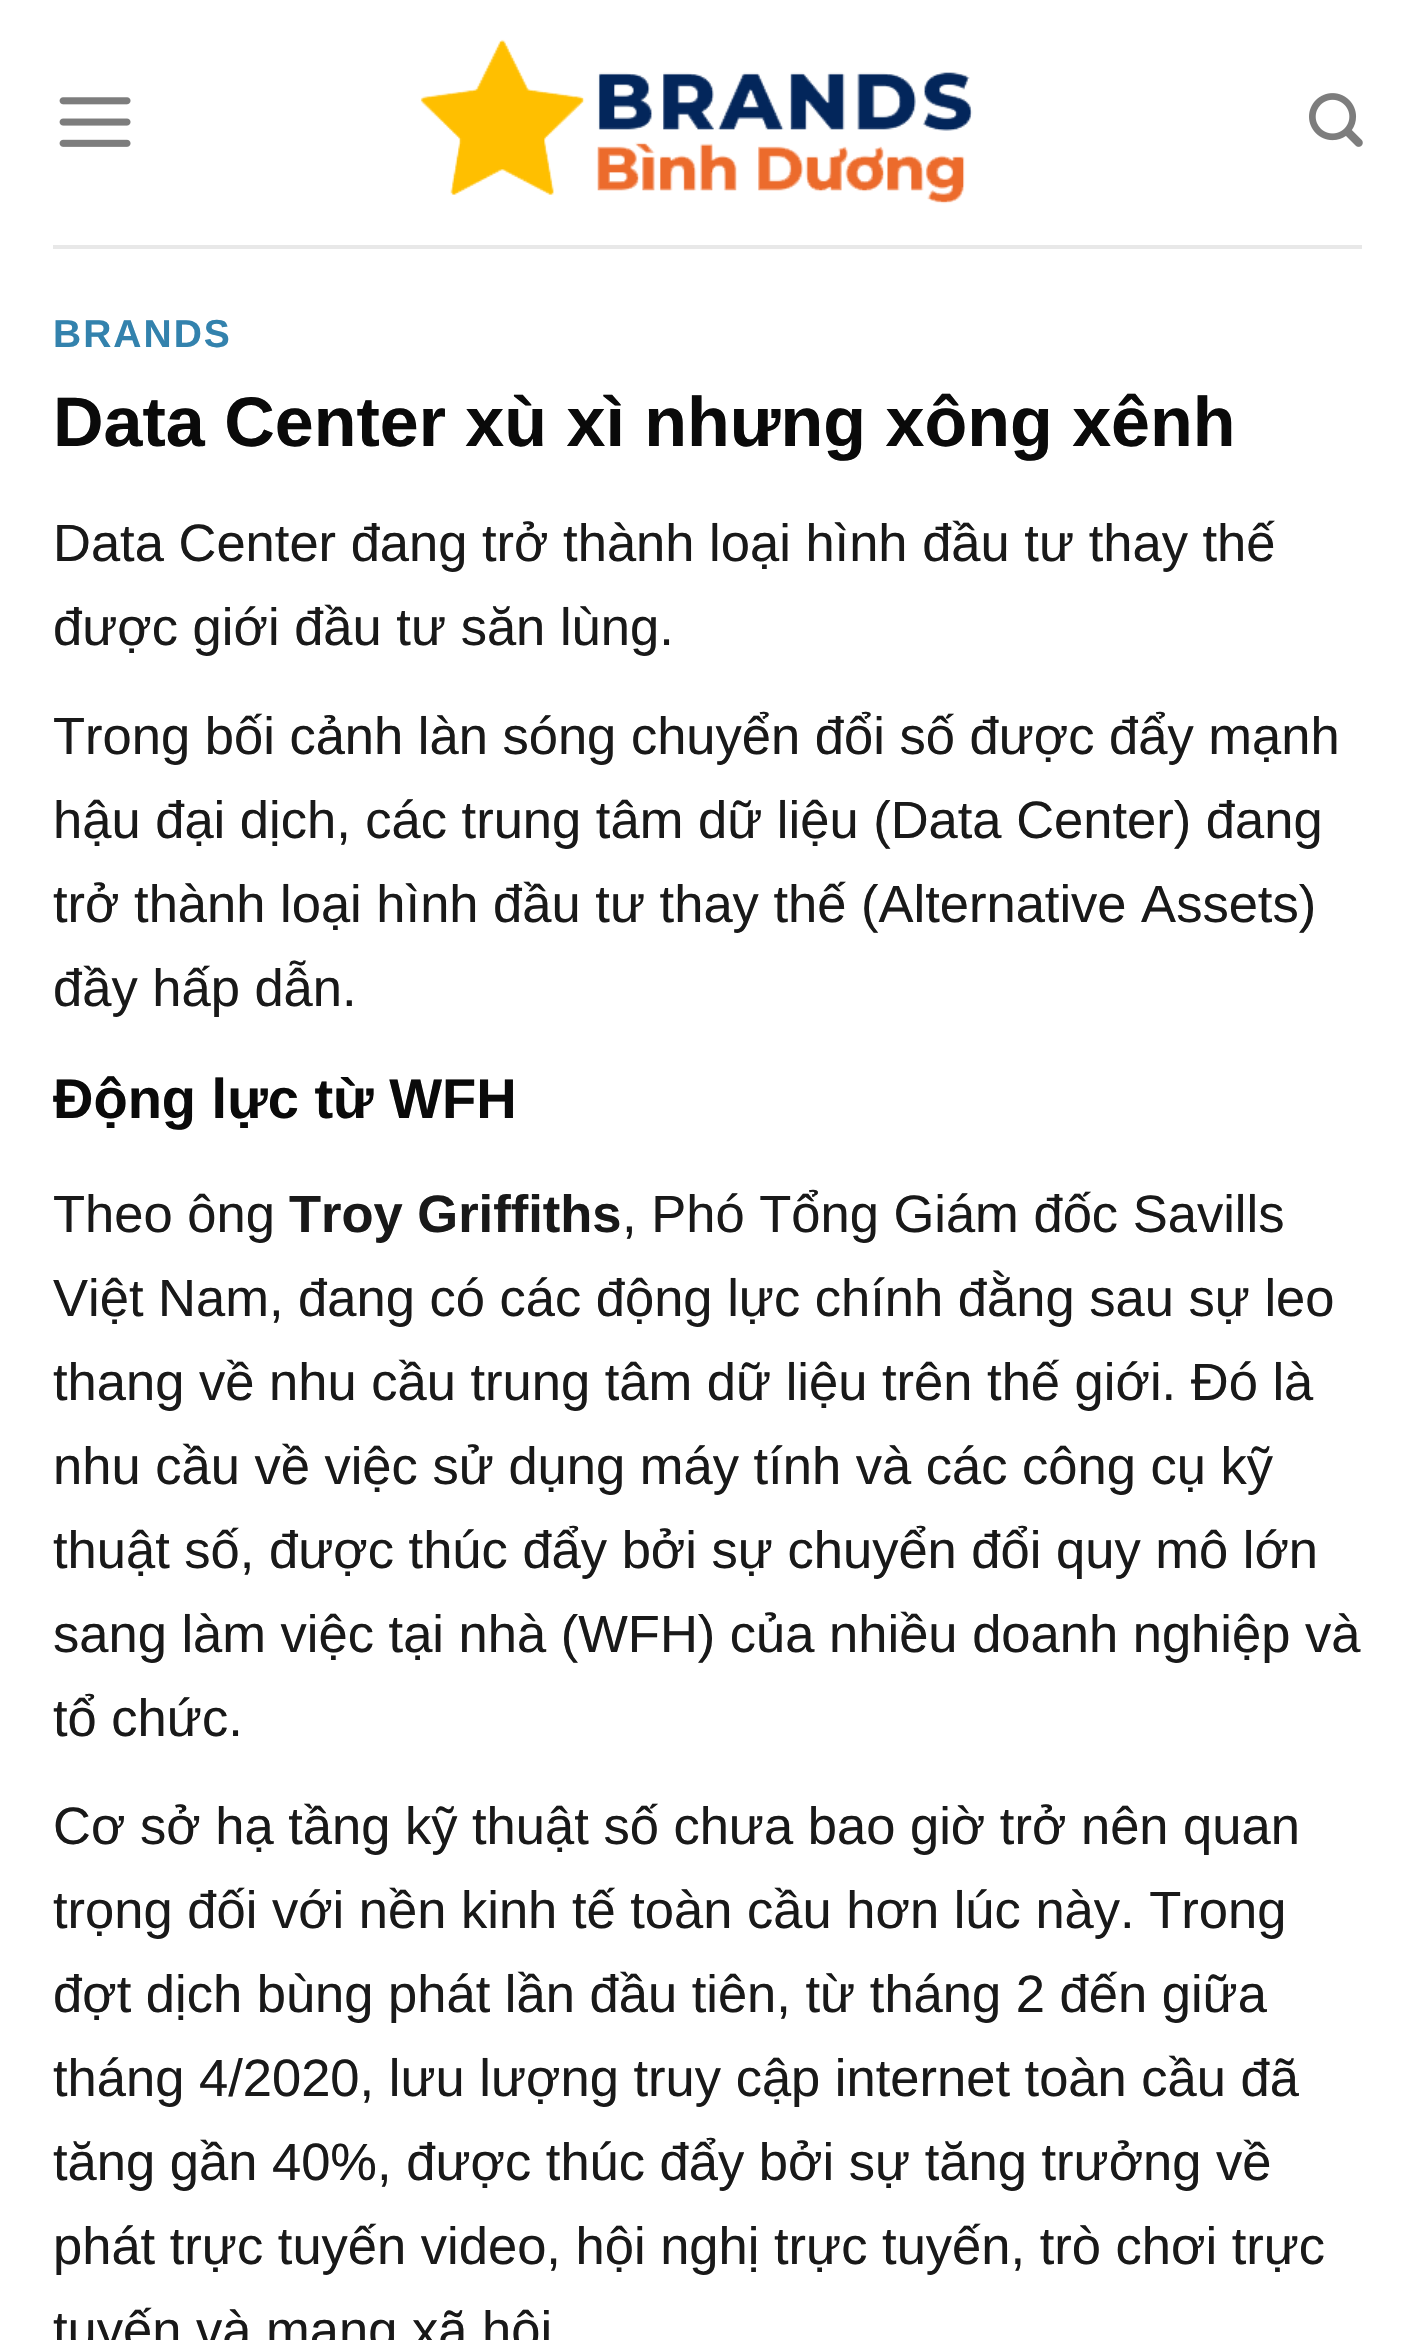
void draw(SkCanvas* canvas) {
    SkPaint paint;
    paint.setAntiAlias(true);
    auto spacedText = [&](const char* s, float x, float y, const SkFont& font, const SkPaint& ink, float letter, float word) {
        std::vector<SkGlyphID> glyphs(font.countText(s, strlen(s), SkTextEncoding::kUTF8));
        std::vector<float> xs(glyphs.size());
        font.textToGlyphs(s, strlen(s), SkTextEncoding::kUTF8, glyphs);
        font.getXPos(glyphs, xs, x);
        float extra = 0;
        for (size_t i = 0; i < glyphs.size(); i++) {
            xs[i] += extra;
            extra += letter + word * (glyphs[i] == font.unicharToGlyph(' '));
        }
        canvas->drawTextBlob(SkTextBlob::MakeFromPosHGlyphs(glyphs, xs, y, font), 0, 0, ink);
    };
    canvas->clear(0xFFFFFFFF);
    canvas->drawImageRect(SkImages::DeferredFromEncodedData(SkData::MakeFromFileName("img1.png")), SkRect::MakeXYWH(59, 97, 72, 50), SkSamplingOptions());
    canvas->drawImageRect(SkImages::DeferredFromEncodedData(SkData::MakeFromFileName("img2.png")), SkRect::MakeXYWH(420, 39, 553, 165), SkSamplingOptions());
    canvas->drawImageRect(SkImages::DeferredFromEncodedData(SkData::MakeFromFileName("img3.png")), SkRect::MakeXYWH(1309, 93, 54, 54), SkSamplingOptions());
    paint.setColor(0xFFE8E8E8);
    canvas->drawRect(SkRect::MakeXYWH(53, 245, 1309, 4), paint);
    SkFont font1(fontMgr->matchFamilyStyle("Liberation Sans", SkFontStyle::Bold()), 39);
    font1.setSubpixel(true);
    paint.setColor(0xFF3382AD);
    spacedText("BRANDS", 53, 347, font1, paint, 2, 0);
    SkFont font2(fontMgr->matchFamilyStyle("Liberation Sans", SkFontStyle::Bold()), 70);
    font2.setSubpixel(true);
    paint.setColor(0xFF0A0A0A);
    canvas->drawString("Data Center xù xì nhưng xông xênh", 53, 446, font2, paint);
    SkFont font3(fontMgr->matchFamilyStyle("Liberation Sans", SkFontStyle::Normal()), 52.5f);
    font3.setSubpixel(true);
    paint.setColor(0xFF191919);
    canvas->drawString("Data Center đang trở thành loại hình đầu tư thay thế", 53, 561, font3, paint);
    canvas->drawString("được giới đầu tư săn lùng.", 53, 645, font3, paint);
    canvas->drawString("Trong bối cảnh làn sóng chuyển đổi số được đẩy mạnh", 53, 754, font3, paint);
    canvas->drawString("hậu đại dịch, các trung tâm dữ liệu (Data Center) đang", 53, 838, font3, paint);
    canvas->drawString("trở thành loại hình đầu tư thay thế (Alternative Assets)", 53, 922, font3, paint);
    canvas->drawString("đầy hấp dẫn.", 53, 1006, font3, paint);
    SkFont font4(fontMgr->matchFamilyStyle("Liberation Sans", SkFontStyle::Bold()), 56);
    font4.setSubpixel(true);
    paint.setColor(0xFF0A0A0A);
    canvas->drawString("Động lực từ WFH", 53, 1118, font4, paint);
    paint.setColor(0xFF191919);
    canvas->drawString("Theo ông", 53, 1232, font3, paint);
    SkFont font5(fontMgr->matchFamilyStyle("Liberation Sans", SkFontStyle::Bold()), 52.5f);
    font5.setSubpixel(true);
    canvas->drawString("Troy Griffiths", 289, 1232, font5, paint);
    canvas->drawString(", Phó Tổng Giám đốc Savills", 622, 1232, font3, paint);
    canvas->drawString("Việt Nam, đang có các động lực chính đằng sau sự leo", 53, 1316, font3, paint);
    canvas->drawString("thang về nhu cầu trung tâm dữ liệu trên thế giới. Đó là", 53, 1400, font3, paint);
    canvas->drawString("nhu cầu về việc sử dụng máy tính và các công cụ kỹ", 53, 1484, font3, paint);
    canvas->drawString("thuật số, được thúc đẩy bởi sự chuyển đổi quy mô lớn", 53, 1568, font3, paint);
    canvas->drawString("sang làm việc tại nhà (WFH) của nhiều doanh nghiệp và", 53, 1652, font3, paint);
    canvas->drawString("tổ chức.", 53, 1736, font3, paint);
    canvas->drawString("Cơ sở hạ tầng kỹ thuật số chưa bao giờ trở nên quan", 53, 1844, font3, paint);
    canvas->drawString("trọng đối với nền kinh tế toàn cầu hơn lúc này. Trong", 53, 1928, font3, paint);
    canvas->drawString("đợt dịch bùng phát lần đầu tiên, từ tháng 2 đến giữa", 53, 2012, font3, paint);
    canvas->drawString("tháng 4/2020, lưu lượng truy cập internet toàn cầu đã", 53, 2096, font3, paint);
    canvas->drawString("tăng gần 40%, được thúc đẩy bởi sự tăng trưởng về", 53, 2180, font3, paint);
    canvas->drawString("phát trực tuyến video, hội nghị trực tuyến, trò chơi trực", 53, 2264, font3, paint);
    canvas->drawString("tuyến và mạng xã hội", 53, 2348, font3, paint);
}
